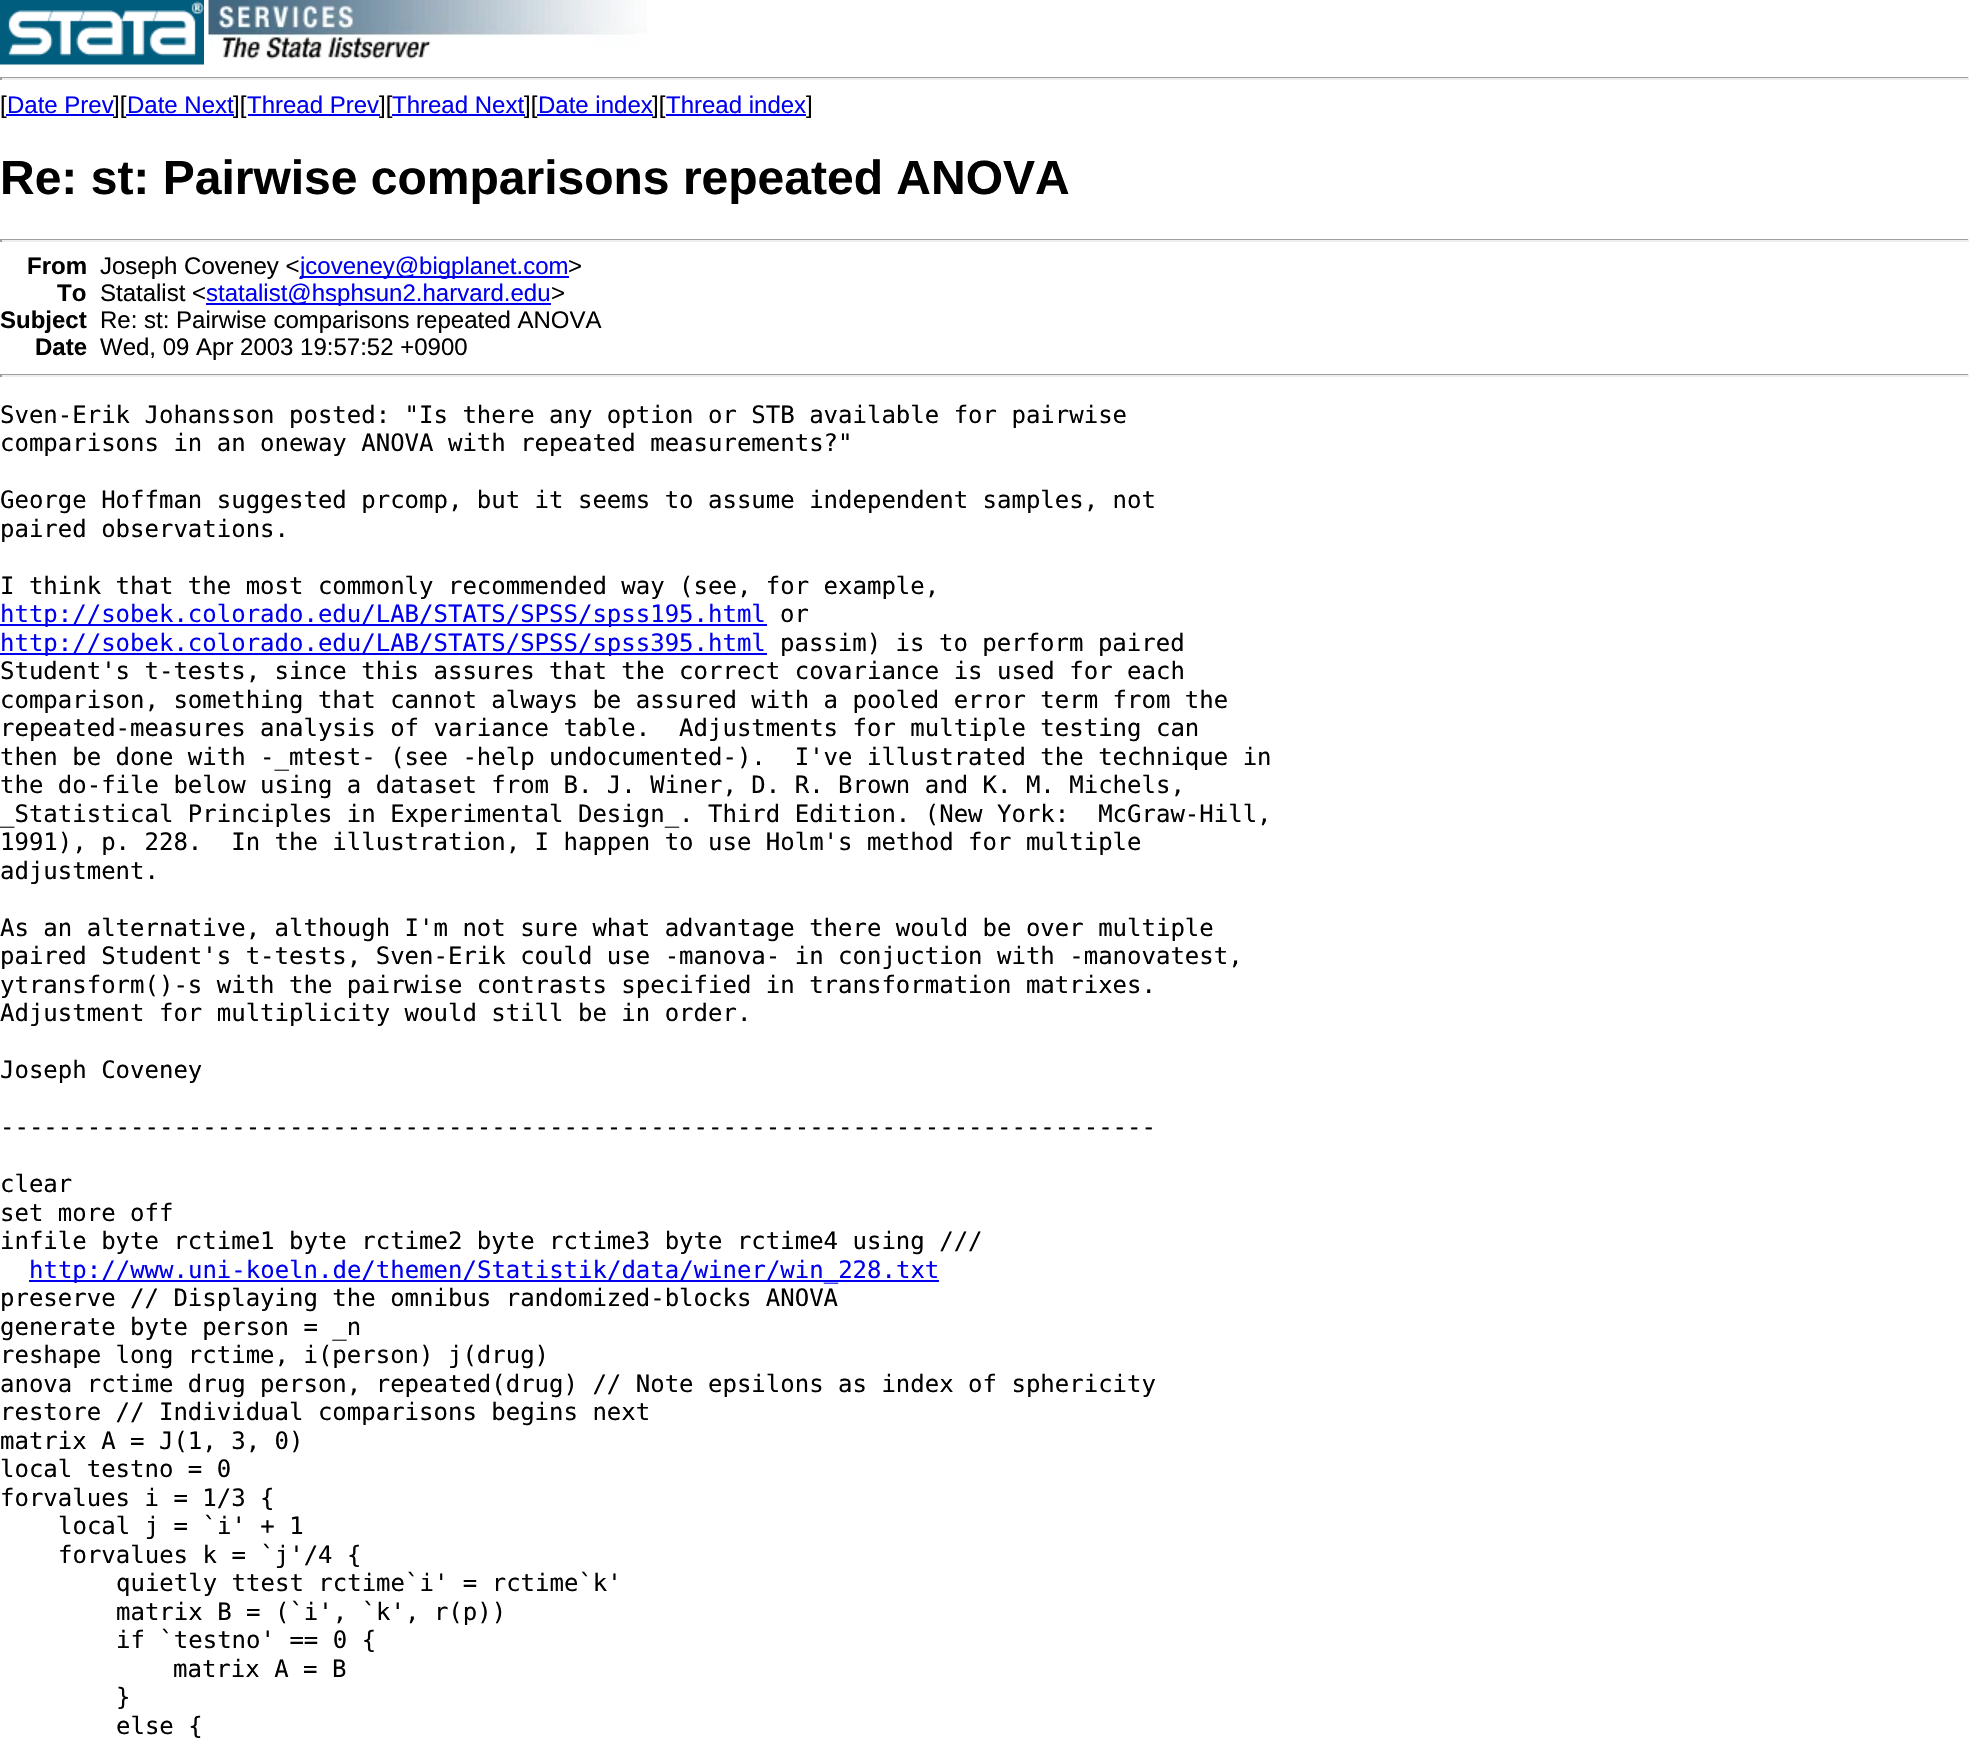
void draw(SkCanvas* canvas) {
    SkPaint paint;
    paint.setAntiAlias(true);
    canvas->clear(0xFFFFFFFF);
    canvas->drawImageRect(SkImages::DeferredFromEncodedData(SkData::MakeFromFileName("img1.png")), SkRect::MakeXYWH(0, 0, 204, 65), SkSamplingOptions());
    canvas->drawImageRect(SkImages::DeferredFromEncodedData(SkData::MakeFromFileName("img2.png")), SkRect::MakeXYWH(208, 0, 439, 60), SkSamplingOptions());
    paint.setColor(0xFF9F9F9F);
    canvas->drawRect(SkRect::MakeXYWH(0, 77, 1969, 1), paint);
    paint.setColor(0xFFEEEEEE);
    canvas->drawRect(SkRect::MakeXYWH(1968, 77, 1, 3), paint);
    canvas->drawRect(SkRect::MakeXYWH(0, 78, 1969, 2), paint);
    paint.setColor(0xFF9F9F9F);
    canvas->drawRect(SkRect::MakeXYWH(0, 77, 2, 3), paint);
    SkFont font1(fontMgr->matchFamilyStyle("Liberation Sans", SkFontStyle::Normal()), 24);
    font1.setSubpixel(true);
    paint.setColor(0xFF000000);
    canvas->drawString("[", 0, 113, font1, paint);
    paint.setColor(0xFF0000EE);
    canvas->drawString("Date Prev", 7, 113, font1, paint);
    canvas->drawRect(SkRect::MakeXYWH(6, 114, 108, 2), paint);
    paint.setColor(0xFF000000);
    canvas->drawString("][", 113, 113, font1, paint);
    paint.setColor(0xFF0000EE);
    canvas->drawString("Date Next", 127, 113, font1, paint);
    canvas->drawRect(SkRect::MakeXYWH(126, 114, 108, 2), paint);
    paint.setColor(0xFF000000);
    canvas->drawString("][", 233, 113, font1, paint);
    paint.setColor(0xFF0000EE);
    canvas->drawString("Thread Prev", 247, 113, font1, paint);
    canvas->drawRect(SkRect::MakeXYWH(248, 114, 132, 2), paint);
    paint.setColor(0xFF000000);
    canvas->drawString("][", 379, 113, font1, paint);
    paint.setColor(0xFF0000EE);
    canvas->drawString("Thread Next", 392, 113, font1, paint);
    canvas->drawRect(SkRect::MakeXYWH(392, 114, 133, 2), paint);
    paint.setColor(0xFF000000);
    canvas->drawString("][", 524, 113, font1, paint);
    paint.setColor(0xFF0000EE);
    canvas->drawString("Date index", 538, 113, font1, paint);
    canvas->drawRect(SkRect::MakeXYWH(537, 114, 116, 2), paint);
    paint.setColor(0xFF000000);
    canvas->drawString("][", 652, 113, font1, paint);
    paint.setColor(0xFF0000EE);
    canvas->drawString("Thread index", 666, 113, font1, paint);
    canvas->drawRect(SkRect::MakeXYWH(666, 114, 140, 2), paint);
    paint.setColor(0xFF000000);
    canvas->drawString("]", 806, 113, font1, paint);
    SkFont font2(fontMgr->matchFamilyStyle("Liberation Sans", SkFontStyle::Bold()), 48);
    font2.setSubpixel(true);
    canvas->drawString("Re: st: Pairwise comparisons repeated ANOVA", 0, 194, font2, paint);
    paint.setColor(0xFF9F9F9F);
    canvas->drawRect(SkRect::MakeXYWH(0, 239, 1969, 1), paint);
    paint.setColor(0xFFEEEEEE);
    canvas->drawRect(SkRect::MakeXYWH(1968, 239, 1, 3), paint);
    canvas->drawRect(SkRect::MakeXYWH(0, 240, 1969, 2), paint);
    paint.setColor(0xFF9F9F9F);
    canvas->drawRect(SkRect::MakeXYWH(0, 239, 2, 3), paint);
    SkFont font3(fontMgr->matchFamilyStyle("Liberation Sans", SkFontStyle::Bold()), 24);
    font3.setSubpixel(true);
    paint.setColor(0xFF000000);
    canvas->drawString("From", 27, 274, font3, paint);
    canvas->drawString("Joseph Coveney <", 100, 274, font1, paint);
    paint.setColor(0xFF0000EE);
    canvas->drawRect(SkRect::MakeXYWH(300, 276, 269, 2), paint);
    canvas->drawString("jcoveney@bigplanet.com", 300, 274, font1, paint);
    paint.setColor(0xFF000000);
    canvas->drawString(">", 568, 274, font1, paint);
    canvas->drawString("To", 57, 301, font3, paint);
    canvas->drawString("Statalist <", 100, 301, font1, paint);
    paint.setColor(0xFF0000EE);
    canvas->drawRect(SkRect::MakeXYWH(206, 303, 345, 2), paint);
    canvas->drawString("statalist@hsphsun2.harvard.edu", 206, 301, font1, paint);
    paint.setColor(0xFF000000);
    canvas->drawString(">", 551, 301, font1, paint);
    canvas->drawString("Subject", 0, 328, font3, paint);
    canvas->drawString("Re: st: Pairwise comparisons repeated ANOVA", 100, 328, font1, paint);
    canvas->drawString("Date", 35, 355, font3, paint);
    canvas->drawString("Wed, 09 Apr 2003 19:57:52 +0900", 100, 355, font1, paint);
    paint.setColor(0xFF9F9F9F);
    canvas->drawRect(SkRect::MakeXYWH(0, 374, 1969, 1), paint);
    paint.setColor(0xFFEEEEEE);
    canvas->drawRect(SkRect::MakeXYWH(1968, 374, 1, 3), paint);
    canvas->drawRect(SkRect::MakeXYWH(0, 375, 1969, 2), paint);
    paint.setColor(0xFF9F9F9F);
    canvas->drawRect(SkRect::MakeXYWH(0, 374, 2, 3), paint);
    SkFont font4(fontMgr->matchFamilyStyle("DejaVu Sans Mono", SkFontStyle::Normal()), 24);
    font4.setSubpixel(true);
    paint.setColor(0xFF000000);
    canvas->drawString("Sven-Erik Johansson posted: \"Is there any option or STB available for pairwise", 0, 423, font4, paint);
    canvas->drawString("comparisons in an oneway ANOVA with repeated measurements?\"", 0, 451, font4, paint);
    canvas->drawString("George Hoffman suggested prcomp, but it seems to assume independent samples, not", 0, 508, font4, paint);
    canvas->drawString("paired observations.", 0, 537, font4, paint);
    canvas->drawString("I think that the most commonly recommended way (see, for example,", 0, 594, font4, paint);
    paint.setColor(0xFF0000EE);
    canvas->drawRect(SkRect::MakeXYWH(0, 624, 767, 2), paint);
    canvas->drawString("http://sobek.colorado.edu/LAB/STATS/SPSS/spss195.html", 0, 622, font4, paint);
    paint.setColor(0xFF000000);
    canvas->drawString("or", 780, 622, font4, paint);
    paint.setColor(0xFF0000EE);
    canvas->drawRect(SkRect::MakeXYWH(0, 653, 767, 2), paint);
    canvas->drawString("http://sobek.colorado.edu/LAB/STATS/SPSS/spss395.html", 0, 651, font4, paint);
    paint.setColor(0xFF000000);
    canvas->drawString("passim) is to perform paired", 780, 651, font4, paint);
    canvas->drawString("Student's t-tests, since this assures that the correct covariance is used for each", 0, 679, font4, paint);
    canvas->drawString("comparison, something that cannot always be assured with a pooled error term from the", 0, 708, font4, paint);
    canvas->drawString("repeated-measures analysis of variance table.  Adjustments for multiple testing can", 0, 736, font4, paint);
    canvas->drawString("then be done with -_mtest- (see -help undocumented-).  I've illustrated the technique in", 0, 765, font4, paint);
    canvas->drawString("the do-file below using a dataset from B. J. Winer, D. R. Brown and K. M. Michels,", 0, 793, font4, paint);
    canvas->drawString("_Statistical Principles in Experimental Design_. Third Edition. (New York:  McGraw-Hill,", 0, 822, font4, paint);
    canvas->drawString("1991), p. 228.  In the illustration, I happen to use Holm's method for multiple", 0, 850, font4, paint);
    canvas->drawString("adjustment.", 0, 879, font4, paint);
    canvas->drawString("As an alternative, although I'm not sure what advantage there would be over multiple", 0, 936, font4, paint);
    canvas->drawString("paired Student's t-tests, Sven-Erik could use -manova- in conjuction with -manovatest,", 0, 964, font4, paint);
    canvas->drawString("ytransform()-s with the pairwise contrasts specified in transformation matrixes.", 0, 993, font4, paint);
    canvas->drawString("Adjustment for multiplicity would still be in order.", 0, 1021, font4, paint);
    canvas->drawString("Joseph Coveney", 0, 1078, font4, paint);
    canvas->drawString("--------------------------------------------------------------------------------", 0, 1135, font4, paint);
    canvas->drawString("clear", 0, 1192, font4, paint);
    canvas->drawString("set more off", 0, 1221, font4, paint);
    canvas->drawString("infile byte rctime1 byte rctime2 byte rctime3 byte rctime4 using ///", 0, 1249, font4, paint);
    paint.setColor(0xFF0000EE);
    canvas->drawRect(SkRect::MakeXYWH(29, 1280, 910, 2), paint);
    canvas->drawString("http://www.uni-koeln.de/themen/Statistik/data/winer/win_228.txt", 29, 1278, font4, paint);
    paint.setColor(0xFF000000);
    canvas->drawString("preserve // Displaying the omnibus randomized-blocks ANOVA", 0, 1306, font4, paint);
    canvas->drawString("generate byte person = _n", 0, 1335, font4, paint);
    canvas->drawString("reshape long rctime, i(person) j(drug)", 0, 1363, font4, paint);
    canvas->drawString("anova rctime drug person, repeated(drug) // Note epsilons as index of sphericity", 0, 1392, font4, paint);
    canvas->drawString("restore // Individual comparisons begins next", 0, 1420, font4, paint);
    canvas->drawString("matrix A = J(1, 3, 0)", 0, 1449, font4, paint);
    canvas->drawString("local testno = 0", 0, 1477, font4, paint);
    canvas->drawString("forvalues i = 1/3 {", 0, 1506, font4, paint);
    canvas->drawString("local j = `i' + 1", 58, 1534, font4, paint);
    canvas->drawString("forvalues k = `j'/4 {", 58, 1563, font4, paint);
    canvas->drawString("quietly ttest rctime`i' = rctime`k'", 116, 1591, font4, paint);
    canvas->drawString("matrix B = (`i', `k', r(p))", 116, 1620, font4, paint);
    canvas->drawString("if `testno' == 0 {", 116, 1648, font4, paint);
    canvas->drawString("matrix A = B", 173, 1677, font4, paint);
    canvas->drawString("}", 116, 1705, font4, paint);
    canvas->drawString("else {", 116, 1734, font4, paint);
}
